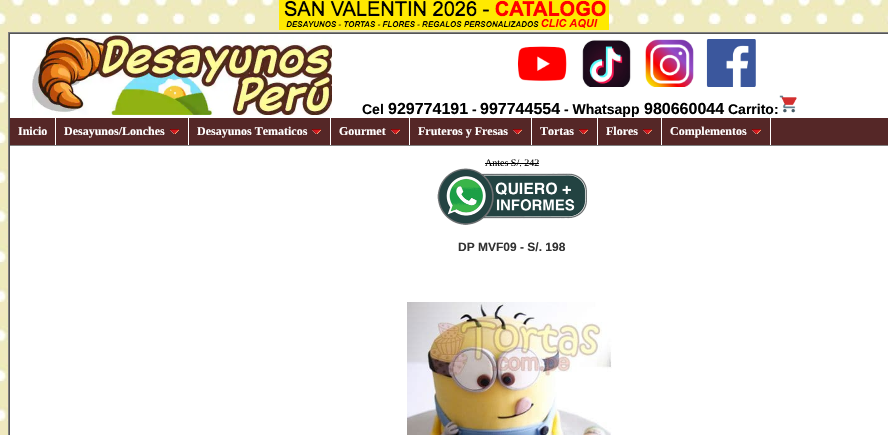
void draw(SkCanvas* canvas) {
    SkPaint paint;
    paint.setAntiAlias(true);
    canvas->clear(0xFFFFFFFF);
    canvas->drawImageRect(SkImages::DeferredFromEncodedData(SkData::MakeFromFileName("img1.png")), SkRect::MakeXYWH(0, 0, 888, 435), SkSamplingOptions());
    canvas->drawImageRect(SkImages::DeferredFromEncodedData(SkData::MakeFromFileName("img2.png")), SkRect::MakeXYWH(279, 0, 330, 30), SkSamplingOptions());
    paint.setColor(0xFF808080);
    canvas->drawRect(SkRect::MakeXYWH(8, 32, 880, 1), paint);
    canvas->drawRect(SkRect::MakeXYWH(8, 32, 1, 403), paint);
    paint.setColor(0xFF555555);
    canvas->drawRect(SkRect::MakeXYWH(9, 33, 879, 1), paint);
    canvas->drawRect(SkRect::MakeXYWH(9, 33, 1, 402), paint);
    paint.setColor(0xFFFFFFFF);
    canvas->drawRect(SkRect::MakeXYWH(10, 34, 878, 84), paint);
    canvas->drawImageRect(SkImages::DeferredFromEncodedData(SkData::MakeFromFileName("img3.png")), SkRect::MakeXYWH(32, 35, 300, 80), SkSamplingOptions());
    canvas->drawImageRect(SkImages::DeferredFromEncodedData(SkData::MakeFromFileName("img4.png")), SkRect::MakeXYWH(517, 39, 239, 48), SkSamplingOptions());
    SkFont font1(fontMgr->matchFamilyStyle("Liberation Sans", SkFontStyle::Bold()), 14);
    font1.setSubpixel(true);
    paint.setColor(0xFF000000);
    canvas->drawString("Cel", 362, 114, font1, paint);
    SkFont font2(fontMgr->matchFamilyStyle("Liberation Sans", SkFontStyle::Bold()), 16);
    font2.setSubpixel(true);
    canvas->drawString("929774191", 388, 114, font2, paint);
    canvas->drawString("-", 472, 114, font1, paint);
    canvas->drawString("997744554", 480, 114, font2, paint);
    canvas->drawString("- Whatsapp", 564, 114, font1, paint);
    canvas->drawString("980660044", 644, 114, font2, paint);
    canvas->drawString("Carrito:", 728, 114, font1, paint);
    canvas->drawImageRect(SkImages::DeferredFromEncodedData(SkData::MakeFromFileName("img5.png")), SkRect::MakeXYWH(779, 95, 18, 18), SkSamplingOptions());
    paint.setColor(0xFF552727);
    canvas->drawRect(SkRect::MakeXYWH(10, 118, 878, 27), paint);
    paint.setColor(0xFF808080);
    canvas->drawRect(SkRect::MakeXYWH(10, 145, 878, 1), paint);
    paint.setColor(0xFFFFFFFF);
    canvas->drawRect(SkRect::MakeXYWH(55, 118, 1, 27), paint);
    SkFont font3(fontMgr->matchFamilyStyle("Liberation Serif", SkFontStyle::Bold()), 12);
    font3.setSubpixel(true);
    canvas->drawString("Inicio", 18, 135, font3, paint);
    canvas->drawRect(SkRect::MakeXYWH(188, 118, 1, 27), paint);
    canvas->drawString("Desayunos/Lonches", 64, 135, font3, paint);
    canvas->drawImageRect(SkImages::DeferredFromEncodedData(SkData::MakeFromFileName("img6.png")), SkRect::MakeXYWH(170, 129, 9, 5), SkSamplingOptions());
    canvas->drawRect(SkRect::MakeXYWH(330, 118, 1, 27), paint);
    canvas->drawString("Desayunos Tematicos", 197, 135, font3, paint);
    canvas->drawImageRect(SkImages::DeferredFromEncodedData(SkData::MakeFromFileName("img6.png")), SkRect::MakeXYWH(312, 129, 9, 5), SkSamplingOptions());
    canvas->drawRect(SkRect::MakeXYWH(409, 118, 1, 27), paint);
    canvas->drawString("Gourmet", 339, 135, font3, paint);
    canvas->drawImageRect(SkImages::DeferredFromEncodedData(SkData::MakeFromFileName("img6.png")), SkRect::MakeXYWH(391, 129, 9, 5), SkSamplingOptions());
    canvas->drawRect(SkRect::MakeXYWH(531, 118, 1, 27), paint);
    canvas->drawString("Fruteros y Fresas", 418, 135, font3, paint);
    canvas->drawImageRect(SkImages::DeferredFromEncodedData(SkData::MakeFromFileName("img6.png")), SkRect::MakeXYWH(513, 129, 9, 5), SkSamplingOptions());
    canvas->drawRect(SkRect::MakeXYWH(597, 118, 1, 27), paint);
    canvas->drawString("Tortas", 540, 135, font3, paint);
    canvas->drawImageRect(SkImages::DeferredFromEncodedData(SkData::MakeFromFileName("img6.png")), SkRect::MakeXYWH(579, 129, 9, 5), SkSamplingOptions());
    canvas->drawRect(SkRect::MakeXYWH(661, 118, 1, 27), paint);
    canvas->drawString("Flores", 606, 135, font3, paint);
    canvas->drawImageRect(SkImages::DeferredFromEncodedData(SkData::MakeFromFileName("img6.png")), SkRect::MakeXYWH(643, 129, 9, 5), SkSamplingOptions());
    canvas->drawRect(SkRect::MakeXYWH(770, 118, 1, 27), paint);
    canvas->drawString("Complementos", 670, 135, font3, paint);
    canvas->drawImageRect(SkImages::DeferredFromEncodedData(SkData::MakeFromFileName("img6.png")), SkRect::MakeXYWH(752, 129, 9, 5), SkSamplingOptions());
    canvas->drawRect(SkRect::MakeXYWH(10, 146, 878, 289), paint);
    SkFont font4(fontMgr->matchFamilyStyle("Liberation Serif", SkFontStyle::Normal()), 10);
    font4.setSubpixel(true);
    paint.setColor(0xFF000000);
    canvas->drawString("Antes S/. 242", 485, 166, font4, paint);
    canvas->drawRect(SkRect::MakeXYWH(485, 163, 54, 1), paint);
    canvas->drawImageRect(SkImages::DeferredFromEncodedData(SkData::MakeFromFileName("img7.png")), SkRect::MakeXYWH(437, 168, 150, 57), SkSamplingOptions());
    SkFont font5(fontMgr->matchFamilyStyle("Liberation Sans", SkFontStyle::Bold()), 12);
    font5.setSubpixel(true);
    paint.setColor(0xFF333333);
    canvas->drawString("DP MVF09 - S/. 198", 458, 251, font5, paint);
    canvas->drawImageRect(SkImages::DeferredFromEncodedData(SkData::MakeFromFileName("img8.png")), SkRect::MakeXYWH(407, 302, 205, 133), SkSamplingOptions());
}
